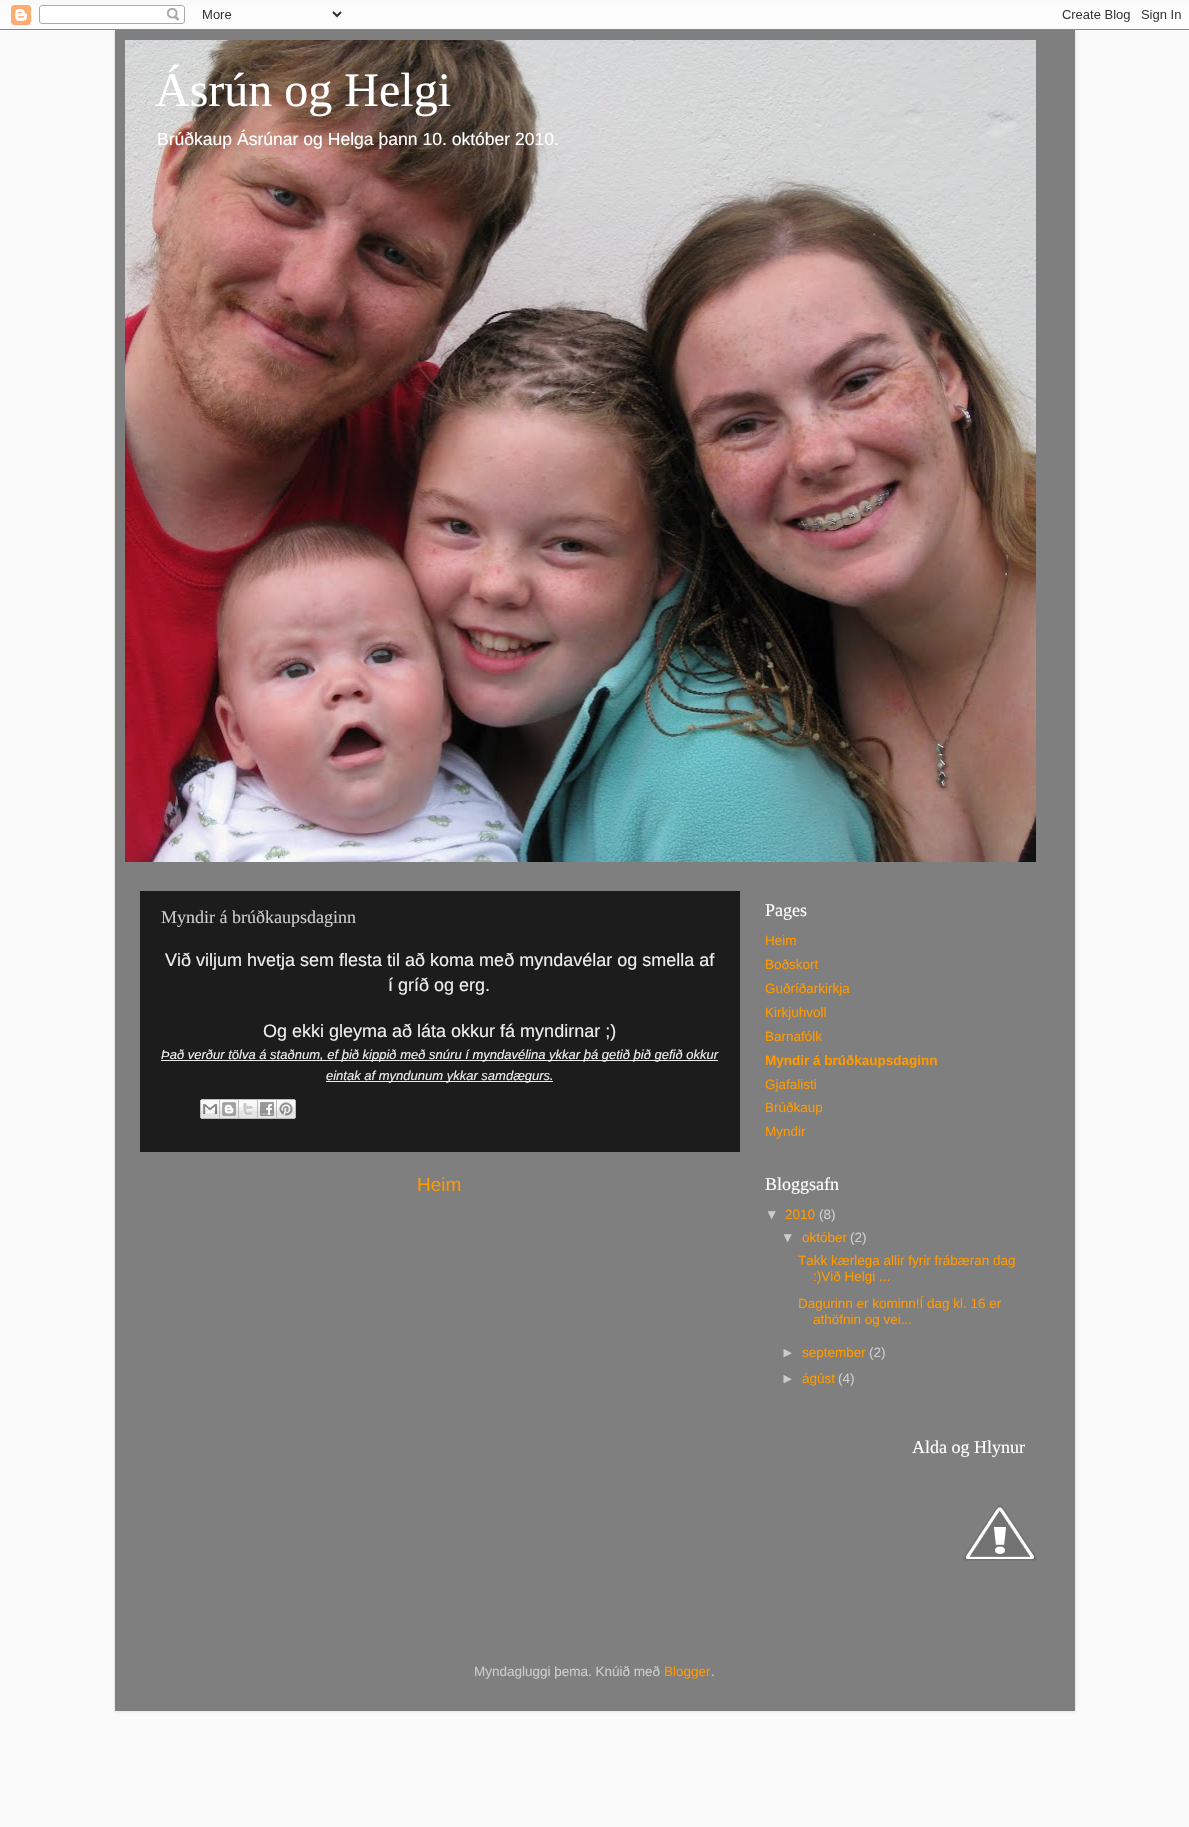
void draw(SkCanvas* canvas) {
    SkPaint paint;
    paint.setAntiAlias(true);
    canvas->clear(0xFFFAFAFA);
    paint.setColor(0x26000000);
    paint.setMaskFilter(SkMaskFilter::MakeBlur(kNormal_SkBlurStyle, 1.5f));
    canvas->drawRect(SkRect::MakeXYWH(115, 30, 960, 1681), paint);
    paint.setMaskFilter(nullptr);
    canvas->drawImageRect(SkImages::DeferredFromEncodedData(SkData::MakeFromFileName("img1.png")), SkRect::MakeXYWH(0, 5, 1189, 25), SkSamplingOptions());
    paint.setColor(0xFF7F7F7F);
    canvas->drawRect(SkRect::MakeXYWH(115, 30, 960, 1681), paint);
    canvas->drawImageRect(SkImages::DeferredFromEncodedData(SkData::MakeFromFileName("img2.png")), SkRect::MakeXYWH(125, 40, 911, 822), SkSamplingOptions());
    SkFont font1(fontMgr->matchFamilyStyle("Liberation Serif", SkFontStyle::Normal()), 48);
    font1.setSubpixel(true);
    paint.setColor(0xFFFFFFFF);
    canvas->drawString("Ásrún og Helgi", 155, 106, font1, paint);
    SkFont font2(fontMgr->matchFamilyStyle("Liberation Sans", SkFontStyle::Normal()), 17.55f);
    font2.setSubpixel(true);
    canvas->drawString("Brúðkaup Ásrúnar og Helga þann 10. október 2010.", 157, 145, font2, paint);
    paint.setColor(0xFF1C1C1C);
    canvas->drawRect(SkRect::MakeXYWH(140, 891, 600, 261), paint);
    SkFont font3(fontMgr->matchFamilyStyle("Liberation Serif", SkFontStyle::Normal()), 18);
    font3.setSubpixel(true);
    paint.setColor(0xFFCCCCCC);
    canvas->drawString("Myndir á brúðkaupsdaginn", 161, 923, font3, paint);
    SkFont font4(fontMgr->matchFamilyStyle("Liberation Sans", SkFontStyle::Normal()), 18);
    font4.setSubpixel(true);
    paint.setColor(0xFFEEEEEE);
    canvas->drawString("Við viljum hvetja sem flesta til að koma með myndavélar og smella af", 165, 966, font4, paint);
    canvas->drawString("í gríð og erg.", 388, 991, font4, paint);
    canvas->drawString("Og ekki gleyma að láta okkur fá myndirnar ;)", 263, 1037, font4, paint);
    canvas->drawRect(SkRect::MakeXYWH(161, 1060, 557, 1), paint);
    SkFont font5(fontMgr->matchFamilyStyle("Liberation Sans", SkFontStyle::Italic()), 13);
    font5.setSubpixel(true);
    canvas->drawString("Það verður tölva á staðnum, ef þið kippið með snúru í myndavélina ykkar þá getið þið gefið okkur", 161, 1059, font5, paint);
    canvas->drawRect(SkRect::MakeXYWH(326, 1081, 227, 1), paint);
    canvas->drawString("eintak af myndunum ykkar samdægurs.", 326, 1080, font5, paint);
    canvas->drawImageRect(SkImages::DeferredFromEncodedData(SkData::MakeFromFileName("img3.png")), SkRect::MakeXYWH(200, 1099, 20, 20), SkSamplingOptions());
    canvas->drawImageRect(SkImages::DeferredFromEncodedData(SkData::MakeFromFileName("img4.png")), SkRect::MakeXYWH(220, 1099, 19, 20), SkSamplingOptions());
    canvas->drawImageRect(SkImages::DeferredFromEncodedData(SkData::MakeFromFileName("img5.png")), SkRect::MakeXYWH(239, 1099, 19, 20), SkSamplingOptions());
    canvas->drawImageRect(SkImages::DeferredFromEncodedData(SkData::MakeFromFileName("img6.png")), SkRect::MakeXYWH(258, 1099, 19, 20), SkSamplingOptions());
    canvas->drawImageRect(SkImages::DeferredFromEncodedData(SkData::MakeFromFileName("img7.png")), SkRect::MakeXYWH(277, 1099, 19, 20), SkSamplingOptions());
    SkFont font6(fontMgr->matchFamilyStyle("Liberation Sans", SkFontStyle::Normal()), 19);
    font6.setSubpixel(true);
    paint.setColor(0xFFFF9900);
    canvas->drawString("Heim", 417, 1191, font6, paint);
    paint.setColor(0xFFFFFFFF);
    canvas->drawString("Pages", 765, 916, font3, paint);
    SkFont font7(fontMgr->matchFamilyStyle("Liberation Sans", SkFontStyle::Normal()), 13.5f);
    font7.setSubpixel(true);
    paint.setColor(0xFFFF9900);
    canvas->drawString("Heim", 765, 945, font7, paint);
    canvas->drawString("Boðskort", 765, 969, font7, paint);
    canvas->drawString("Guðríðarkirkja", 765, 993, font7, paint);
    canvas->drawString("Kirkjuhvoll", 765, 1017, font7, paint);
    canvas->drawString("Barnafólk", 765, 1041, font7, paint);
    SkFont font8(fontMgr->matchFamilyStyle("Liberation Sans", SkFontStyle::Bold()), 13.5f);
    font8.setSubpixel(true);
    canvas->drawString("Myndir á brúðkaupsdaginn", 765, 1065, font8, paint);
    canvas->drawString("Gjafalisti", 765, 1089, font7, paint);
    canvas->drawString("Brúðkaup", 765, 1112, font7, paint);
    canvas->drawString("Myndir", 765, 1136, font7, paint);
    paint.setColor(0xFFFFFFFF);
    canvas->drawString("Bloggsafn", 765, 1190, font3, paint);
    paint.setColor(0xFFCCCCCC);
    canvas->drawString("▼", 765, 1219, font7, paint);
    paint.setColor(0xFFFF9900);
    canvas->drawString("2010", 785, 1219, font7, paint);
    paint.setColor(0xFFCCCCCC);
    canvas->drawString("(8)", 819, 1219, font7, paint);
    canvas->drawString("▼", 781, 1242, font7, paint);
    paint.setColor(0xFFFF9900);
    canvas->drawString("október", 802, 1242, font7, paint);
    paint.setColor(0xFFCCCCCC);
    canvas->drawString("(2)", 850, 1242, font7, paint);
    paint.setColor(0xFFFF9900);
    canvas->drawString("Takk kærlega allir fyrir frábæran dag", 798, 1265, font7, paint);
    canvas->drawString(":)Við Helgi ...", 813, 1281, font7, paint);
    canvas->drawString("Dagurinn er kominn!Í dag kl. 16 er", 798, 1308, font7, paint);
    canvas->drawString("athöfnin og vei...", 813, 1324, font7, paint);
    paint.setColor(0xFFCCCCCC);
    canvas->drawString("►", 781, 1357, font7, paint);
    paint.setColor(0xFFFF9900);
    canvas->drawString("september", 802, 1357, font7, paint);
    paint.setColor(0xFFCCCCCC);
    canvas->drawString("(2)", 869, 1357, font7, paint);
    canvas->drawString("►", 781, 1383, font7, paint);
    paint.setColor(0xFFFF9900);
    canvas->drawString("ágúst", 802, 1383, font7, paint);
    paint.setColor(0xFFCCCCCC);
    canvas->drawString("(4)", 838, 1383, font7, paint);
    paint.setColor(0xFFFFFFFF);
    canvas->drawString("Alda og Hlynur", 912, 1453, font3, paint);
    canvas->drawImageRect(SkImages::DeferredFromEncodedData(SkData::MakeFromFileName("img8.png")), SkRect::MakeXYWH(963, 1505, 74, 56), SkSamplingOptions());
    paint.setColor(0xFFCCCCCC);
    canvas->drawString("Myndagluggi þema. Knúið með", 474, 1676, font7, paint);
    paint.setColor(0xFFFF9900);
    canvas->drawString("Blogger", 664, 1676, font7, paint);
    paint.setColor(0xFFCCCCCC);
    canvas->drawString(".", 711, 1676, font7, paint);
}
